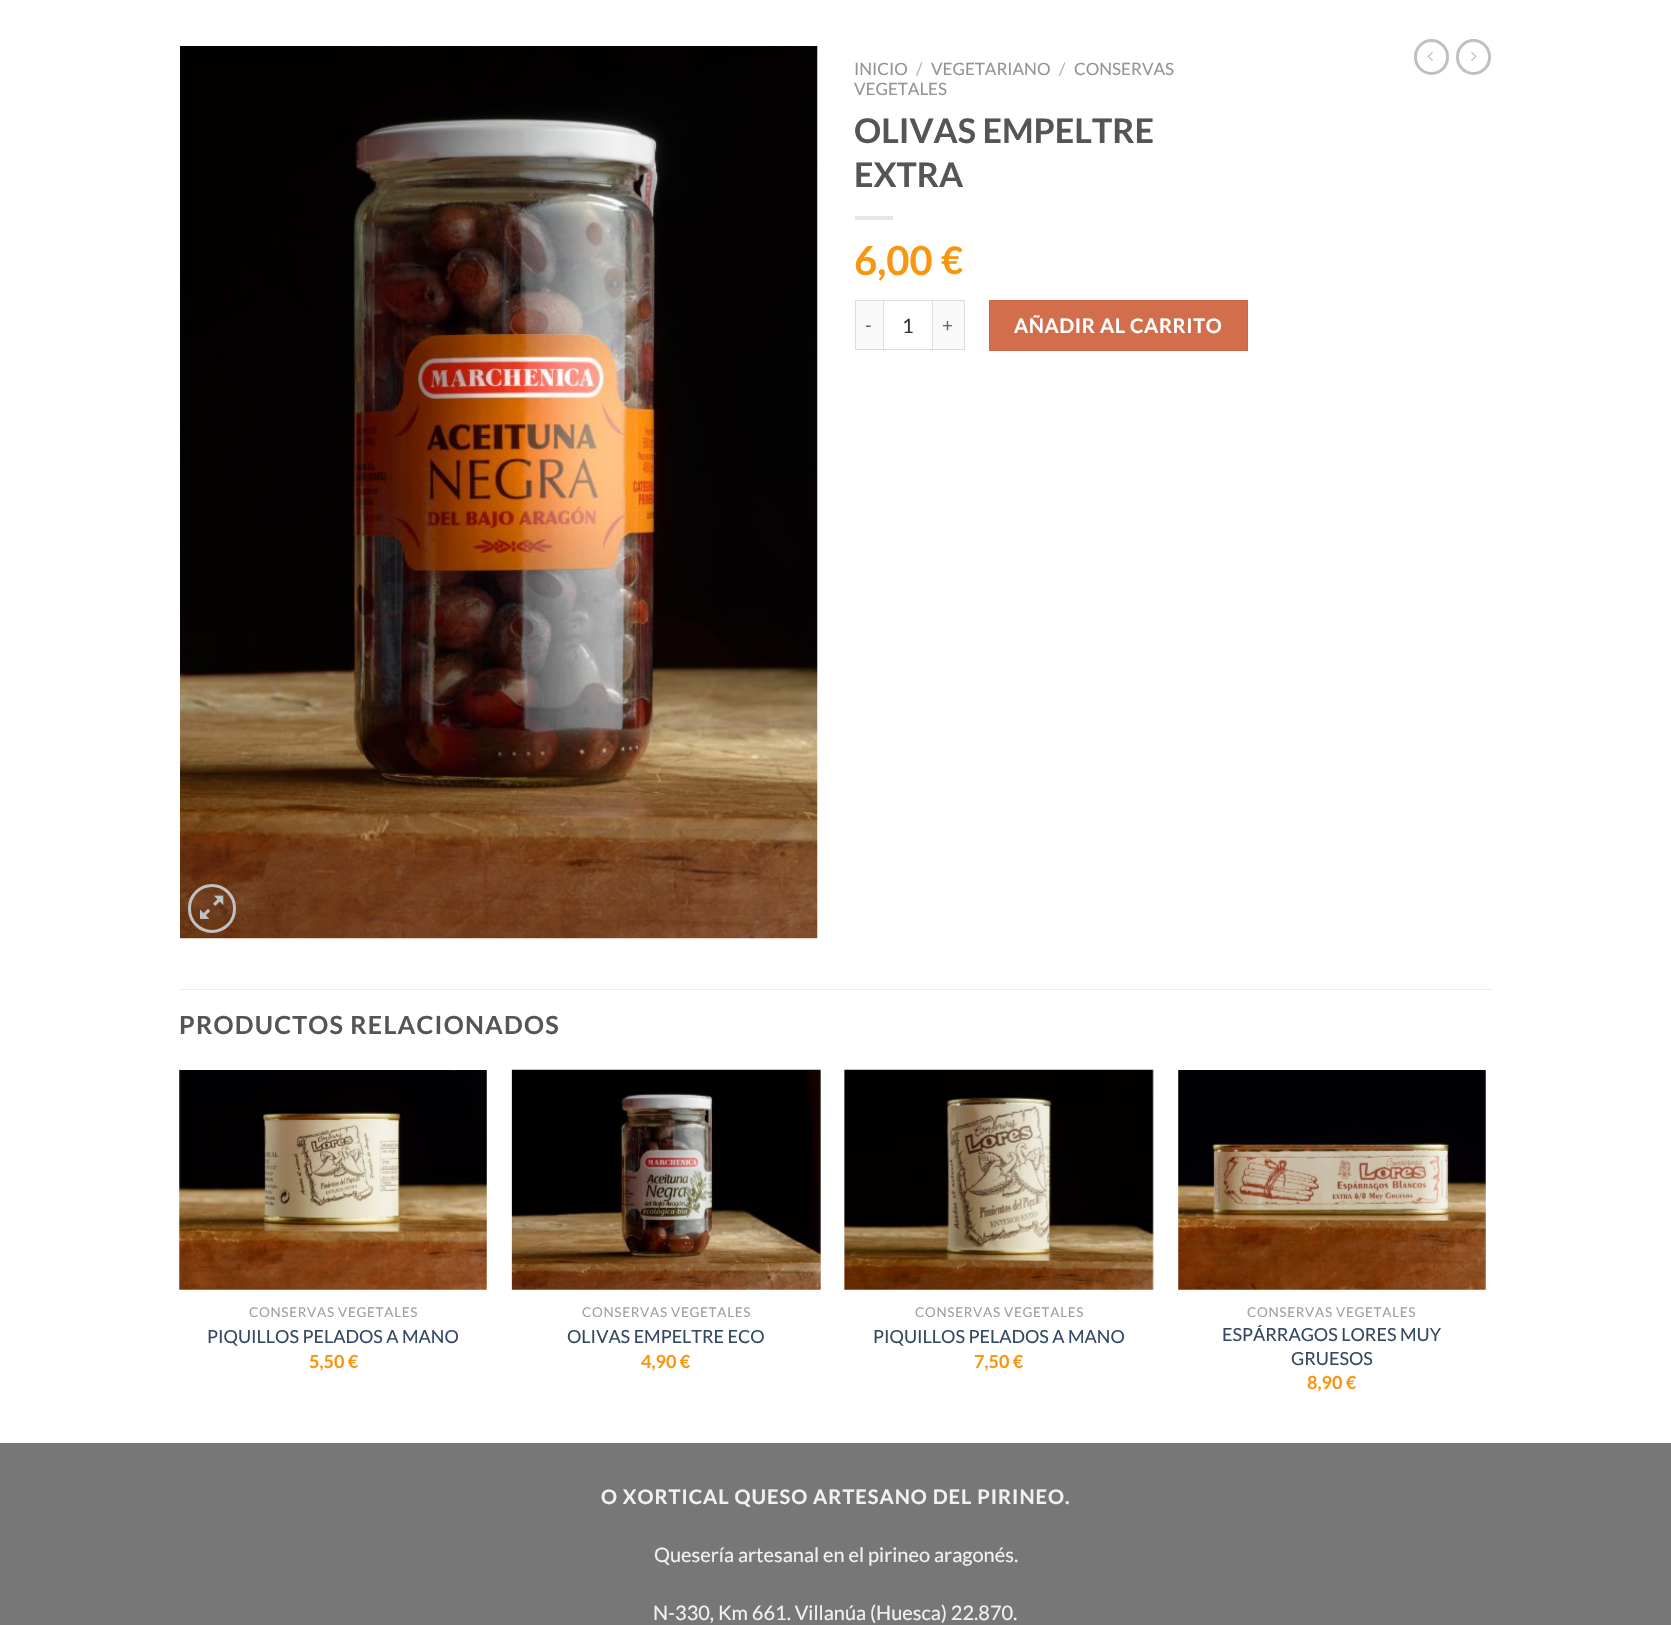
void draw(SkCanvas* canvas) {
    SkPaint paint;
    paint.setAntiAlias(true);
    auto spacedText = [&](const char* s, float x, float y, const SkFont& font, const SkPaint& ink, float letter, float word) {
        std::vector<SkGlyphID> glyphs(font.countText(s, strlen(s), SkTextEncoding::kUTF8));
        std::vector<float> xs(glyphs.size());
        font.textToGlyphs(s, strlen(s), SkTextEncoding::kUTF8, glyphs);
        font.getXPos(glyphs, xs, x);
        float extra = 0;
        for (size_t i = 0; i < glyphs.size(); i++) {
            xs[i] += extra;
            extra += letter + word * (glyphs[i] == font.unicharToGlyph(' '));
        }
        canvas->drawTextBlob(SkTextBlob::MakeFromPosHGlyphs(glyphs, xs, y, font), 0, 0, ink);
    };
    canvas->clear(0xFFFFFFFF);
    canvas->drawImageRect(SkImages::DeferredFromEncodedData(SkData::MakeFromFileName("img1.png")), SkRect::MakeXYWH(180, 46, 638, 893), SkSamplingOptions());
    paint.setStyle(SkPaint::kStroke_Style);
    paint.setStrokeWidth(3);
    paint.setColor(0xFFC0C0C0);
    canvas->drawRoundRect(SkRect::MakeXYWH(189.5f, 885.5f, 45, 46), 22.5f, 22.5f, paint);
    canvas->drawImageRect(SkImages::DeferredFromEncodedData(SkData::MakeFromFileName("img2.png")), SkRect::MakeXYWH(200, 895, 24, 24), SkSamplingOptions());
    SkFont font1(fontMgr->matchFamilyStyle("Lato", SkFontStyle::Normal()), 17);
    font1.setSubpixel(true);
    paint.setStyle(SkPaint::kFill_Style);
    paint.setColor(0xFF949494);
    canvas->drawString("INICIO", 854, 75, font1, paint);
    paint.setColor(0xFFB2B2B2);
    canvas->drawString("/", 916, 75, font1, paint);
    paint.setColor(0xFF949494);
    canvas->drawString("VEGETARIANO", 931, 75, font1, paint);
    paint.setColor(0xFFB2B2B2);
    canvas->drawString("/", 1059, 75, font1, paint);
    paint.setColor(0xFF949494);
    canvas->drawString("CONSERVAS", 1074, 75, font1, paint);
    canvas->drawString("VEGETALES", 854, 95, font1, paint);
    SkFont font2(fontMgr->matchFamilyStyle("Lato", SkFontStyle::Bold()), 34);
    font2.setSubpixel(true);
    paint.setColor(0xFF555555);
    canvas->drawString("OLIVAS EMPELTRE", 854, 143, font2, paint);
    canvas->drawString("EXTRA", 854, 187, font2, paint);
    paint.setColor(0xFFE6E6E6);
    canvas->drawRect(SkRect::MakeXYWH(855, 216, 38, 4), paint);
    SkFont font3(fontMgr->matchFamilyStyle("Lato", SkFontStyle::Bold()), 40);
    font3.setSubpixel(true);
    paint.setColor(0xFFF9960F);
    canvas->drawString("6,00", 854, 275, font3, paint);
    SkFont font4(fontMgr->matchFamilyStyle("Lato", SkFontStyle::Bold()), 38);
    font4.setSubpixel(true);
    canvas->drawString("€", 941, 274, font4, paint);
    paint.setColor(0xFFF9F9F9);
    canvas->drawRect(SkRect::MakeXYWH(856, 301, 27, 48), paint);
    paint.setColor(0xFFDDDDDD);
    canvas->drawRect(SkRect::MakeXYWH(855, 300, 28, 1), paint);
    canvas->drawRect(SkRect::MakeXYWH(855, 349, 28, 1), paint);
    canvas->drawRect(SkRect::MakeXYWH(855, 300, 1, 50), paint);
    SkFont font5(fontMgr->matchFamilyStyle("Lato", SkFontStyle::Normal()), 19);
    font5.setSubpixel(true);
    paint.setColor(0xFF666666);
    spacedText("-", 865, 332, font5, paint, 1, 0);
    paint.setStyle(SkPaint::kStroke_Style);
    paint.setStrokeWidth(1);
    paint.setColor(0xFFDDDDDD);
    canvas->drawRect(SkRect::MakeXYWH(883.5f, 300.5f, 49, 49), paint);
    SkFont font6(fontMgr->matchFamilyStyle("Lato", SkFontStyle::Normal()), 20);
    font6.setSubpixel(true);
    paint.setStyle(SkPaint::kFill_Style);
    paint.setColor(0xFF333333);
    canvas->drawString("1", 902, 333, font6, paint);
    paint.setColor(0xFFF9F9F9);
    canvas->drawRect(SkRect::MakeXYWH(933, 301, 31, 48), paint);
    paint.setColor(0xFFDDDDDD);
    canvas->drawRect(SkRect::MakeXYWH(933, 300, 32, 1), paint);
    canvas->drawRect(SkRect::MakeXYWH(964, 300, 1, 50), paint);
    canvas->drawRect(SkRect::MakeXYWH(933, 349, 32, 1), paint);
    paint.setColor(0xFF666666);
    spacedText("+", 942, 332, font5, paint, 1, 0);
    paint.setColor(0xFFD26E4B);
    canvas->drawRect(SkRect::MakeXYWH(989.5f, 300.5f, 258, 50), paint);
    paint.setStyle(SkPaint::kStroke_Style);
    paint.setColor(0xFFC86947);
    canvas->drawRect(SkRect::MakeXYWH(989.5f, 300.5f, 258, 50), paint);
    SkFont font7(fontMgr->matchFamilyStyle("Lato", SkFontStyle::Bold()), 20);
    font7.setSubpixel(true);
    paint.setStyle(SkPaint::kFill_Style);
    paint.setColor(0xFFFFFFFF);
    spacedText("AÑADIR AL CARRITO", 1014, 333, font7, paint, 0.6f, 0);
    paint.setStyle(SkPaint::kStroke_Style);
    paint.setStrokeWidth(3);
    paint.setColor(0xFFC0C0C0);
    canvas->drawRoundRect(SkRect::MakeXYWH(1415.5f, 40.5f, 32, 33), 16, 16, paint);
    canvas->drawImageRect(SkImages::DeferredFromEncodedData(SkData::MakeFromFileName("img3.png")), SkRect::MakeXYWH(1427, 51, 6, 10), SkSamplingOptions());
    canvas->drawRoundRect(SkRect::MakeXYWH(1457.5f, 40.5f, 32, 33), 16, 16, paint);
    canvas->drawImageRect(SkImages::DeferredFromEncodedData(SkData::MakeFromFileName("img4.png")), SkRect::MakeXYWH(1471, 51, 6, 10), SkSamplingOptions());
    paint.setStyle(SkPaint::kFill_Style);
    paint.setColor(0xFFECECEC);
    canvas->drawRect(SkRect::MakeXYWH(180, 989, 1313, 1), paint);
    SkFont font8(fontMgr->matchFamilyStyle("Lato", SkFontStyle::Bold()), 25);
    font8.setSubpixel(true);
    paint.setColor(0xFF555555);
    spacedText("PRODUCTOS RELACIONADOS", 179, 1034, font8, paint, 1.25f, 0);
    canvas->drawImageRect(SkImages::DeferredFromEncodedData(SkData::MakeFromFileName("img5.png")), SkRect::MakeXYWH(179, 1070, 308, 220), SkSamplingOptions());
    SkFont font9(fontMgr->matchFamilyStyle("Lato", SkFontStyle::Normal()), 13.5f);
    font9.setSubpixel(true);
    paint.setColor(0xFFA0A0A0);
    spacedText("CONSERVAS VEGETALES", 249, 1317, font9, paint, 0.7f, 0);
    SkFont font10(fontMgr->matchFamilyStyle("Lato", SkFontStyle::Normal()), 18);
    font10.setSubpixel(true);
    paint.setColor(0xFF334862);
    canvas->drawString("PIQUILLOS PELADOS A MANO", 207, 1343, font10, paint);
    SkFont font11(fontMgr->matchFamilyStyle("Lato", SkFontStyle::Bold()), 18);
    font11.setSubpixel(true);
    paint.setColor(0xFFF9960F);
    canvas->drawString("5,50 €", 309, 1368, font11, paint);
    canvas->drawImageRect(SkImages::DeferredFromEncodedData(SkData::MakeFromFileName("img6.png")), SkRect::MakeXYWH(511, 1069, 310, 221), SkSamplingOptions());
    paint.setColor(0xFFA0A0A0);
    spacedText("CONSERVAS VEGETALES", 582, 1317, font9, paint, 0.7f, 0);
    paint.setColor(0xFF334862);
    canvas->drawString("OLIVAS EMPELTRE ECO", 567, 1343, font10, paint);
    paint.setColor(0xFFF9960F);
    canvas->drawString("4,90 €", 641, 1368, font11, paint);
    canvas->drawImageRect(SkImages::DeferredFromEncodedData(SkData::MakeFromFileName("img7.png")), SkRect::MakeXYWH(844, 1069, 310, 221), SkSamplingOptions());
    paint.setColor(0xFFA0A0A0);
    spacedText("CONSERVAS VEGETALES", 915, 1317, font9, paint, 0.7f, 0);
    paint.setColor(0xFF334862);
    canvas->drawString("PIQUILLOS PELADOS A MANO", 873, 1343, font10, paint);
    paint.setColor(0xFFF9960F);
    canvas->drawString("7,50 €", 974, 1368, font11, paint);
    canvas->drawImageRect(SkImages::DeferredFromEncodedData(SkData::MakeFromFileName("img8.png")), SkRect::MakeXYWH(1178, 1070, 308, 220), SkSamplingOptions());
    paint.setColor(0xFFA0A0A0);
    spacedText("CONSERVAS VEGETALES", 1247, 1317, font9, paint, 0.7f, 0);
    paint.setColor(0xFF334862);
    canvas->drawString("ESPÁRRAGOS LORES MUY", 1222, 1341, font10, paint);
    canvas->drawString("GRUESOS", 1291, 1365, font10, paint);
    paint.setColor(0xFFF9960F);
    canvas->drawString("8,90 €", 1307, 1389, font11, paint);
    paint.setColor(0xFF777777);
    canvas->drawRect(SkRect::MakeXYWH(0, 1444, 1671, 181), paint);
    paint.setColor(0xFF717171);
    canvas->drawRect(SkRect::MakeXYWH(0, 1443, 1671, 1), paint);
    paint.setColor(0xFFF1F1F1);
    spacedText("O XORTICAL QUESO ARTESANO DEL PIRINEO.", 601, 1504, font7, paint, 1, 0);
    canvas->drawString("Quesería artesanal en el pirineo aragonés.", 654, 1562, font6, paint);
    canvas->drawString("N-330, Km 661. Villanúa (Huesca) 22.870.", 653, 1620, font6, paint);
}
